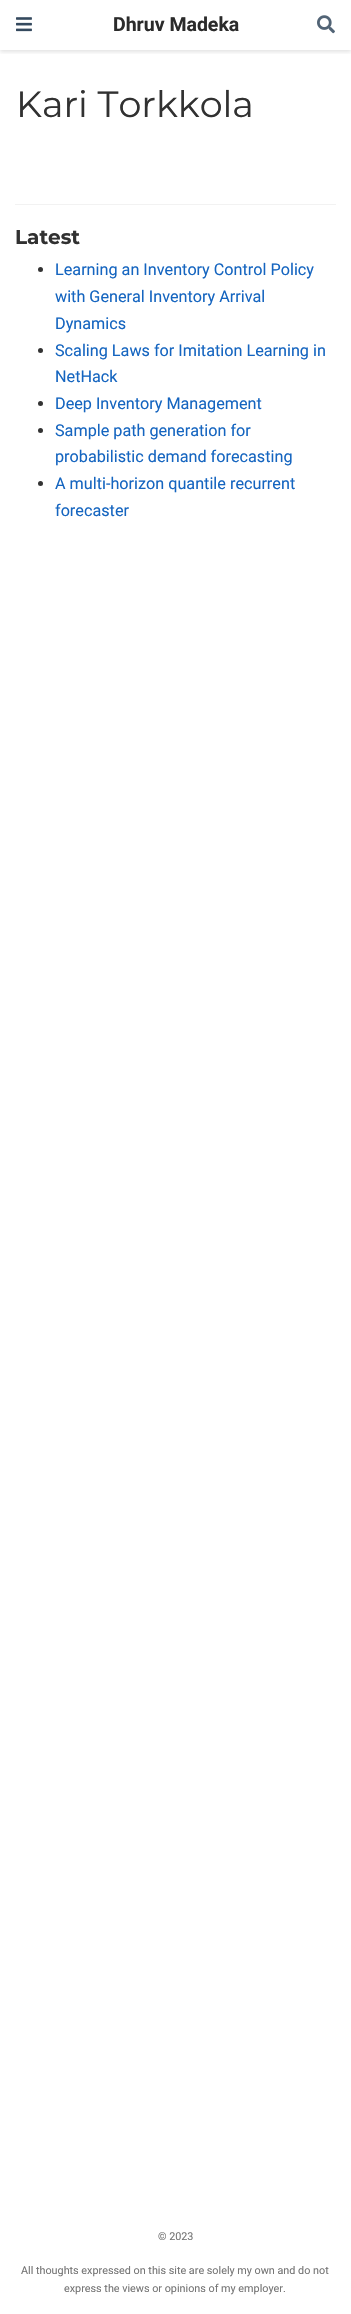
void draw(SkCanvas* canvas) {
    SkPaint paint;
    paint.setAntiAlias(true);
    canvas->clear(0xFFFFFFFF);
    canvas->save();
    canvas->clipRect(SkRect::MakeXYWH(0, 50, 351, 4));
    paint.setColor(0x1C000000);
    paint.setMaskFilter(SkMaskFilter::MakeBlur(kNormal_SkBlurStyle, 2));
    canvas->drawRect(SkRect::MakeXYWH(0, 2, 351, 50), paint);
    paint.setMaskFilter(nullptr);
    canvas->restore();
    canvas->drawImageRect(SkImages::DeferredFromEncodedData(SkData::MakeFromFileName("img1.png")), SkRect::MakeXYWH(16, 17, 16, 15), SkSamplingOptions());
    SkFont font1(fontMgr->matchFamilyStyle("Roboto", SkFontStyle::Bold()), 19.5f);
    font1.setSubpixel(true);
    paint.setColor(0xFF2B2B2B);
    canvas->drawString("Dhruv Madeka", 113, 31, font1, paint);
    canvas->drawImageRect(SkImages::DeferredFromEncodedData(SkData::MakeFromFileName("img2.png")), SkRect::MakeXYWH(317, 15, 18, 19), SkSamplingOptions());
    SkFont font2(fontMgr->matchFamilyStyle("Montserrat", SkFontStyle::Normal()), 36.5f);
    font2.setSubpixel(true);
    paint.setColor(0xFF313131);
    canvas->drawString("Kari Torkkola", 16, 117, font2, paint);
    paint.setColor(0xFFF2F2F2);
    canvas->drawRect(SkRect::MakeXYWH(15, 204, 321, 1), paint);
    SkFont font3(fontMgr->matchFamilyStyle("Montserrat", SkFontStyle::Bold()), 20);
    font3.setSubpixel(true);
    paint.setColor(0xFF313131);
    canvas->drawString("Latest", 15, 244, font3, paint);
    paint.setColor(0xFF333333);
    canvas->drawCircle(40.5f, 269.5f, 2.5f, paint);
    SkFont font4(fontMgr->matchFamilyStyle("Roboto", SkFontStyle::Normal()), 16.2f);
    font4.setSubpixel(true);
    paint.setColor(0xFF1565C0);
    canvas->drawString("Learning an Inventory Control Policy", 55, 275, font4, paint);
    canvas->drawString("with General Inventory Arrival", 55, 302, font4, paint);
    canvas->drawString("Dynamics", 55, 329, font4, paint);
    paint.setColor(0xFF333333);
    canvas->drawCircle(40.5f, 350.5f, 2.5f, paint);
    paint.setColor(0xFF1565C0);
    canvas->drawString("Scaling Laws for Imitation Learning in", 55, 356, font4, paint);
    canvas->drawString("NetHack", 55, 382, font4, paint);
    paint.setColor(0xFF333333);
    canvas->drawCircle(40.5f, 403.5f, 2.5f, paint);
    paint.setColor(0xFF1565C0);
    canvas->drawString("Deep Inventory Management", 55, 409, font4, paint);
    paint.setColor(0xFF333333);
    canvas->drawCircle(40.5f, 430.5f, 2.5f, paint);
    paint.setColor(0xFF1565C0);
    canvas->drawString("Sample path generation for", 55, 436, font4, paint);
    canvas->drawString("probabilistic demand forecasting", 55, 462, font4, paint);
    paint.setColor(0xFF333333);
    canvas->drawCircle(40.5f, 483.5f, 2.5f, paint);
    paint.setColor(0xFF1565C0);
    canvas->drawString("A multi-horizon quantile recurrent", 55, 489, font4, paint);
    canvas->drawString("forecaster", 55, 516, font4, paint);
    SkFont font5(fontMgr->matchFamilyStyle("Roboto", SkFontStyle::Normal()), 10.8f);
    font5.setSubpixel(true);
    paint.setColor(0xFF757575);
    canvas->drawString("© 2023", 158, 2240, font5, paint);
    canvas->drawString("All thoughts expressed on this site are solely my own and do not", 21, 2274, font5, paint);
    canvas->drawString("express the views or opinions of my employer.", 64, 2292, font5, paint);
}
